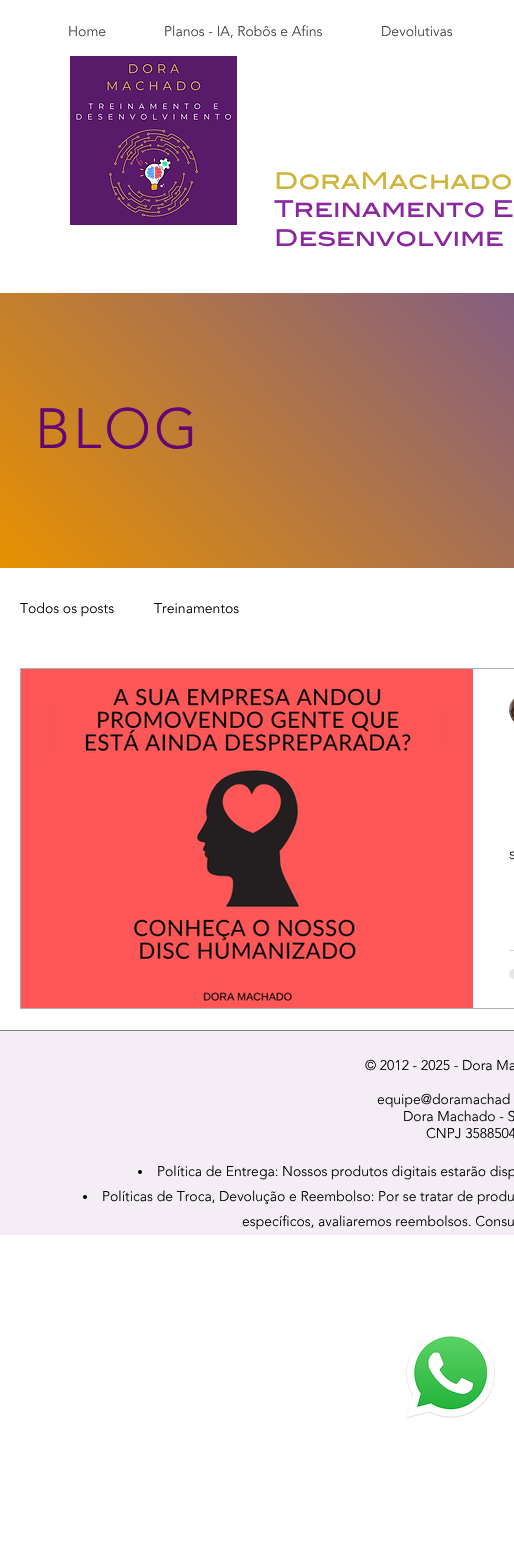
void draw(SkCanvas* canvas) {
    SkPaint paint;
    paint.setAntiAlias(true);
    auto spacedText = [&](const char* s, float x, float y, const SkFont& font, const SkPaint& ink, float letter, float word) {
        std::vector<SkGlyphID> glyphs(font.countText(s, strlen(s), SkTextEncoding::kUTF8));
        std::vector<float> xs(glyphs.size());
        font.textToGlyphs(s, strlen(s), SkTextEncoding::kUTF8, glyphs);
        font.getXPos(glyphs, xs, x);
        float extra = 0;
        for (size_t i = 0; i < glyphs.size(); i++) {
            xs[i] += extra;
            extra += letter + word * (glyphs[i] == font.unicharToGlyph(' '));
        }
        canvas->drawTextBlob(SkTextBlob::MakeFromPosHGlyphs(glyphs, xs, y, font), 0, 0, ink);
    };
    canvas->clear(0xFFFFFFFF);
    SkFont font1(fontMgr->matchFamilyStyle("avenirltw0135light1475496", SkFontStyle(300, SkFontStyle::kNormal_Width, SkFontStyle::kUpright_Slant)), 14);
    font1.setSubpixel(true);
    paint.setColor(0xFF404040);
    canvas->drawString("Home", 68, 36, font1, paint);
    canvas->drawString("Planos - IA, Robôs e Afins", 164, 36, font1, paint);
    canvas->drawString("Devolutivas", 381, 36, font1, paint);
    canvas->drawImageRect(SkImages::DeferredFromEncodedData(SkData::MakeFromFileName("img1.png")), SkRect::MakeXYWH(70, 56, 167, 169), SkSamplingOptions());
    SkFont font2(fontMgr->matchFamilyStyle("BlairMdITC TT", SkFontStyle(500, SkFontStyle::kNormal_Width, SkFontStyle::kUpright_Slant)), 23);
    font2.setSubpixel(true);
    paint.setColor(0xFFCFB53B);
    canvas->drawString("DoraMachado", 274, 189, font2, paint);
    paint.setColor(0xFF8B289F);
    canvas->drawString("Treinamento E", 274, 217, font2, paint);
    canvas->drawString("Desenvolvime", 274, 246, font2, paint);
    {
        const SkColor colors[] = {0xFFE79100, 0xFF4940CD};
        const float stops[] = {0, 1};
        const SkPoint ends[] = {{176, 744}, {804, 117}};
        paint.setShader(SkGradientShader::MakeLinear(ends, colors, stops, 2, SkTileMode::kClamp));
        paint.setAlpha(255);
    }
    canvas->drawRect(SkRect::MakeXYWH(0, 293, 514, 275), paint);
    SkFont font3(fontMgr->matchFamilyStyle("avenirltw0135light1475496", SkFontStyle(300, SkFontStyle::kNormal_Width, SkFontStyle::kUpright_Slant)), 56);
    font3.setSubpixel(true);
    paint.setShader(nullptr);
    paint.setColor(0xFF620674);
    spacedText("BLOG", 35, 448, font3, paint, 3, 0);
    paint.setColor(0xFF000000);
    canvas->drawString("Todos os posts", 20, 613, font1, paint);
    canvas->drawString("Treinamentos", 154, 613, font1, paint);
    paint.setStyle(SkPaint::kStroke_Style);
    paint.setStrokeWidth(1);
    paint.setColor(0xFFB0B0B0);
    canvas->drawRect(SkRect::MakeXYWH(20.5f, 668.5f, 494, 340), paint);
    canvas->drawImageRect(SkImages::DeferredFromEncodedData(SkData::MakeFromFileName("img2.png")), SkRect::MakeXYWH(21, 669, 452, 339), SkSamplingOptions());
    canvas->drawImageRect(SkImages::DeferredFromEncodedData(SkData::MakeFromFileName("img3.png")), SkRect::MakeXYWH(55, 669, 384, 339), SkSamplingOptions());
    canvas->drawImageRect(SkImages::DeferredFromEncodedData(SkData::MakeFromFileName("img4.png")), SkRect::MakeXYWH(509, 698, 5, 24), SkSamplingOptions());
    SkFont font4(fontMgr->matchFamilyStyle("avenirltw0135light1475496", SkFontStyle(300, SkFontStyle::kNormal_Width, SkFontStyle::kUpright_Slant)), 16);
    font4.setSubpixel(true);
    paint.setStyle(SkPaint::kFill_Style);
    paint.setColor(0xFF2F2E2E);
    canvas->drawString("s", 509, 859, font4, paint);
    paint.setColor(0xFFD5D5D5);
    canvas->drawRect(SkRect::MakeXYWH(509, 950, 5, 1), paint);
    paint.setColor(0xFFE6E6E6);
    canvas->drawCircle(514, 974, 5, paint);
    paint.setColor(0xFFF4EDF5);
    canvas->drawRect(SkRect::MakeXYWH(0, 1031, 514, 204), paint);
    paint.setColor(0xFF808080);
    canvas->drawRect(SkRect::MakeXYWH(0, 1030, 514, 1), paint);
    paint.setColor(0xFF000000);
    canvas->drawString("© 2012 - 2025 - Dora Ma", 365, 1070, font1, paint);
    canvas->drawString("equipe@doramachad", 377, 1104, font1, paint);
    canvas->drawString("Dora Machado - S", 403, 1121, font1, paint);
    canvas->drawString("CNPJ 3588504", 426, 1138, font1, paint);
    canvas->drawCircle(140, 1172, 2, paint);
    canvas->drawString("Política de Entrega: Nossos produtos digitais estarão disp", 157, 1176, font1, paint);
    canvas->drawCircle(85, 1197, 2, paint);
    canvas->drawString("Políticas de Troca, Devolução e Reembolso: Por se tratar de produ", 102, 1201, font1, paint);
    canvas->drawString("específicos, avaliaremos reembolsos. Consu", 242, 1226, font1, paint);
    canvas->drawImageRect(SkImages::DeferredFromEncodedData(SkData::MakeFromFileName("img5.png")), SkRect::MakeXYWH(406, 1335, 89, 83), SkSamplingOptions());
}
